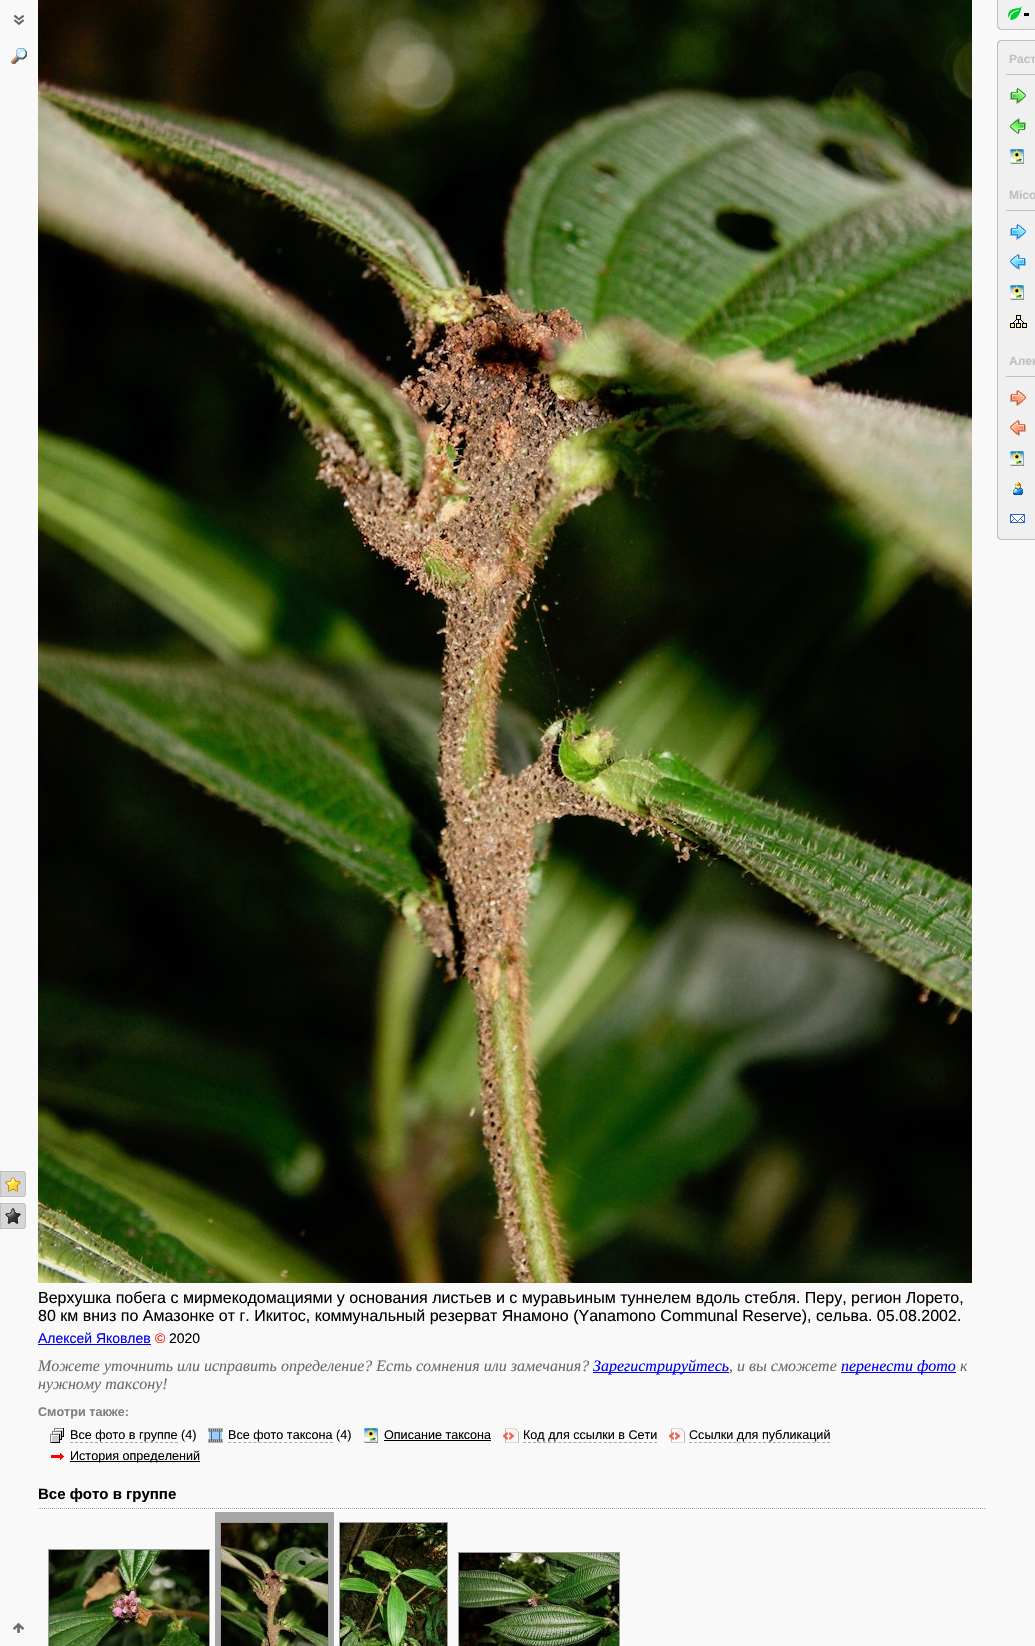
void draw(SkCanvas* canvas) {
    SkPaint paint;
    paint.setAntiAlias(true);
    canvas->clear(0xFFF9F9F9);
    canvas->drawImageRect(SkImages::DeferredFromEncodedData(SkData::MakeFromFileName("img1.png")), SkRect::MakeXYWH(14, 15, 10, 10), SkSamplingOptions());
    canvas->drawImageRect(SkImages::DeferredFromEncodedData(SkData::MakeFromFileName("img2.png")), SkRect::MakeXYWH(11, 48, 16, 16), SkSamplingOptions());
    paint.setColor(0xFFD6D6D6);
    canvas->drawPath(SkPathBuilder().moveTo(0, 1171).lineTo(23, 1171).cubicTo(24.5f, 1171, 26, 1172.5f, 26, 1174).lineTo(26, 1194).cubicTo(26, 1195.5f, 24.5f, 1197, 23, 1197).lineTo(0, 1197).close().detach(), paint);
    canvas->drawImageRect(SkImages::DeferredFromEncodedData(SkData::MakeFromFileName("img3.png")), SkRect::MakeXYWH(5, 1177, 16, 15), SkSamplingOptions());
    paint.setStyle(SkPaint::kStroke_Style);
    paint.setStrokeWidth(1);
    paint.setColor(0xFFC0C0C0);
    canvas->drawPath(SkPathBuilder().moveTo(0.5f, 1171.5f).lineTo(23, 1171.5f).cubicTo(24.5f, 1171.5f, 25.5f, 1172.5f, 25.5f, 1174).lineTo(25.5f, 1194).cubicTo(25.5f, 1195.5f, 24.5f, 1196.5f, 23, 1196.5f).lineTo(0.5f, 1196.5f).close().detach(), paint);
    paint.setStyle(SkPaint::kFill_Style);
    paint.setColor(0xFFD6D6D6);
    canvas->drawPath(SkPathBuilder().moveTo(0, 1203).lineTo(23, 1203).cubicTo(24.5f, 1203, 26, 1204.5f, 26, 1206).lineTo(26, 1226).cubicTo(26, 1227.5f, 24.5f, 1229, 23, 1229).lineTo(0, 1229).close().detach(), paint);
    canvas->drawImageRect(SkImages::DeferredFromEncodedData(SkData::MakeFromFileName("img4.png")), SkRect::MakeXYWH(5, 1208, 16, 16), SkSamplingOptions());
    paint.setStyle(SkPaint::kStroke_Style);
    paint.setColor(0xFFC0C0C0);
    canvas->drawPath(SkPathBuilder().moveTo(0.5f, 1203.5f).lineTo(23, 1203.5f).cubicTo(24.5f, 1203.5f, 25.5f, 1204.5f, 25.5f, 1206).lineTo(25.5f, 1226).cubicTo(25.5f, 1227.5f, 24.5f, 1228.5f, 23, 1228.5f).lineTo(0.5f, 1228.5f).close().detach(), paint);
    paint.setStyle(SkPaint::kFill_Style);
    paint.setColor(0xFFF0F0F0);
    canvas->drawPath(SkPathBuilder().moveTo(997, 0).lineTo(1035, 0).lineTo(1035, 30).lineTo(1002, 30).cubicTo(999, 30, 997, 28, 997, 25).close().detach(), paint);
    canvas->drawImageRect(SkImages::DeferredFromEncodedData(SkData::MakeFromFileName("img5.png")), SkRect::MakeXYWH(1008, 6, 14, 14), SkSamplingOptions());
    paint.setColor(0xFFC0C0C0);
    canvas->drawPath(SkPathBuilder(SkPathFillType::kEvenOdd).moveTo(997, 0).lineTo(1035, 0).lineTo(1035, 30).lineTo(1002, 30).cubicTo(999, 30, 997, 28, 997, 25).close().moveTo(998, 0).lineTo(1035, 0).lineTo(1035, 29).lineTo(1002, 29).cubicTo(1000, 29, 998, 27, 998, 25).close().detach(), paint);
    paint.setColor(0xFF000000);
    canvas->drawRect(SkRect::MakeXYWH(1024, 13, 5, 3), paint);
    paint.setColor(0xFFF0F0F0);
    canvas->drawPath(SkPathBuilder().moveTo(1002, 40).lineTo(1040, 40).lineTo(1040, 540).lineTo(1002, 540).cubicTo(999, 540, 997, 538, 997, 535).lineTo(997, 45).cubicTo(997, 42, 999, 40, 1002, 40).close().detach(), paint);
    paint.setColor(0xFFC0C0C0);
    canvas->drawPath(SkPathBuilder(SkPathFillType::kEvenOdd).moveTo(1002, 40).lineTo(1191, 40).lineTo(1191, 540).lineTo(1002, 540).cubicTo(999, 540, 997, 538, 997, 535).lineTo(997, 45).cubicTo(997, 42, 999, 40, 1002, 40).close().moveTo(1002, 41).lineTo(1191, 41).lineTo(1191, 539).lineTo(1002, 539).cubicTo(1000, 539, 998, 537, 998, 535).lineTo(998, 45).cubicTo(998, 43, 1000, 41, 1002, 41).close().detach(), paint);
    canvas->drawRect(SkRect::MakeXYWH(1006, 74, 29, 1), paint);
    SkFont font1(fontMgr->matchFamilyStyle("Liberation Sans", SkFontStyle::Bold()), 12);
    font1.setSubpixel(true);
    canvas->drawString("Раст", 1009, 63, font1, paint);
    canvas->drawImageRect(SkImages::DeferredFromEncodedData(SkData::MakeFromFileName("img6.png")), SkRect::MakeXYWH(1010, 88, 16, 16), SkSamplingOptions());
    canvas->drawImageRect(SkImages::DeferredFromEncodedData(SkData::MakeFromFileName("img7.png")), SkRect::MakeXYWH(1010, 118, 16, 16), SkSamplingOptions());
    canvas->drawImageRect(SkImages::DeferredFromEncodedData(SkData::MakeFromFileName("img8.png")), SkRect::MakeXYWH(1010, 149, 14, 15), SkSamplingOptions());
    canvas->drawRect(SkRect::MakeXYWH(1006, 210, 29, 1), paint);
    canvas->drawString("Mico", 1009, 199, font1, paint);
    canvas->drawImageRect(SkImages::DeferredFromEncodedData(SkData::MakeFromFileName("img9.png")), SkRect::MakeXYWH(1010, 224, 16, 16), SkSamplingOptions());
    canvas->drawImageRect(SkImages::DeferredFromEncodedData(SkData::MakeFromFileName("img10.png")), SkRect::MakeXYWH(1010, 254, 16, 16), SkSamplingOptions());
    canvas->drawImageRect(SkImages::DeferredFromEncodedData(SkData::MakeFromFileName("img8.png")), SkRect::MakeXYWH(1010, 285, 14, 15), SkSamplingOptions());
    canvas->drawImageRect(SkImages::DeferredFromEncodedData(SkData::MakeFromFileName("img11.png")), SkRect::MakeXYWH(1010, 315, 17, 13), SkSamplingOptions());
    canvas->drawRect(SkRect::MakeXYWH(1006, 376, 29, 1), paint);
    canvas->drawString("Алек", 1009, 365, font1, paint);
    canvas->drawImageRect(SkImages::DeferredFromEncodedData(SkData::MakeFromFileName("img12.png")), SkRect::MakeXYWH(1010, 390, 16, 16), SkSamplingOptions());
    canvas->drawImageRect(SkImages::DeferredFromEncodedData(SkData::MakeFromFileName("img13.png")), SkRect::MakeXYWH(1010, 420, 16, 16), SkSamplingOptions());
    canvas->drawImageRect(SkImages::DeferredFromEncodedData(SkData::MakeFromFileName("img8.png")), SkRect::MakeXYWH(1010, 451, 14, 15), SkSamplingOptions());
    canvas->drawImageRect(SkImages::DeferredFromEncodedData(SkData::MakeFromFileName("img14.png")), SkRect::MakeXYWH(1013, 482, 10, 13), SkSamplingOptions());
    canvas->drawImageRect(SkImages::DeferredFromEncodedData(SkData::MakeFromFileName("img15.png")), SkRect::MakeXYWH(1010, 514, 15, 9), SkSamplingOptions());
    canvas->drawImageRect(SkImages::DeferredFromEncodedData(SkData::MakeFromFileName("img16.png")), SkRect::MakeXYWH(38, 0, 934, 1283), SkSamplingOptions());
    SkFont font2(fontMgr->matchFamilyStyle("Liberation Sans", SkFontStyle::Normal()), 16);
    font2.setSubpixel(true);
    paint.setColor(0xFF000000);
    canvas->drawString("Верхушка побега с мирмекодомациями у основания листьев и с муравьиным туннелем вдоль стебля. Перу, регион Лорето,", 38, 1303, font2, paint);
    canvas->drawString("80 км вниз по Амазонке от г. Икитос, коммунальный резерват Янамоно (Yanamono Communal Reserve), сельва. 05.08.2002.", 38, 1321, font2, paint);
    SkFont font3(fontMgr->matchFamilyStyle("Liberation Sans", SkFontStyle::Normal()), 14);
    font3.setSubpixel(true);
    paint.setColor(0xFF0000EE);
    canvas->drawString("Алексей Яковлев", 38, 1343, font3, paint);
    canvas->drawRect(SkRect::MakeXYWH(38, 1344, 113, 1), paint);
    paint.setColor(0xFFFF0000);
    canvas->drawString("©", 155, 1343, font3, paint);
    paint.setColor(0xFF000000);
    canvas->drawString("2020", 169, 1343, font3, paint);
    SkFont font4(fontMgr->matchFamilyStyle("Liberation Serif", SkFontStyle::Italic()), 16);
    font4.setSubpixel(true);
    paint.setColor(0xFF696969);
    canvas->drawString("Можете уточнить или исправить определение? Есть сомнения или замечания?", 38, 1371, font4, paint);
    paint.setColor(0xFF0000EE);
    canvas->drawRect(SkRect::MakeXYWH(593, 1372, 136, 1), paint);
    canvas->drawString("Зарегистрируйтесь", 593, 1371, font4, paint);
    paint.setColor(0xFF696969);
    canvas->drawString(", и вы сможете", 729, 1371, font4, paint);
    paint.setColor(0xFF0000EE);
    canvas->drawRect(SkRect::MakeXYWH(841, 1372, 115, 1), paint);
    canvas->drawString("перенести фото", 841, 1371, font4, paint);
    paint.setColor(0xFF696969);
    canvas->drawString("к", 960, 1371, font4, paint);
    canvas->drawString("нужному таксону!", 38, 1389, font4, paint);
    SkFont font5(fontMgr->matchFamilyStyle("Liberation Sans", SkFontStyle::Bold()), 12.6f);
    font5.setSubpixel(true);
    paint.setColor(0xFF808080);
    canvas->drawString("Смотри также:", 38, 1416, font5, paint);
    canvas->drawImageRect(SkImages::DeferredFromEncodedData(SkData::MakeFromFileName("img17.png")), SkRect::MakeXYWH(50, 1428, 14, 15), SkSamplingOptions());
    SkFont font6(fontMgr->matchFamilyStyle("Liberation Sans", SkFontStyle::Normal()), 12.6f);
    font6.setSubpixel(true);
    paint.setColor(0xFF000000);
    canvas->drawString("Все фото в группе (4)", 70, 1439, font6, paint);
    paint.setStyle(SkPaint::kStroke_Style);
    paint.setColor(0xFFA9A9A9);
    paint.setPathEffect(SkDashPathEffect::Make({{3, 2}}, 0));
    canvas->drawPath(SkPathBuilder().moveTo(70, 1442.5f).lineTo(178, 1442.5f).detach(), paint);
    paint.setPathEffect(nullptr);
    canvas->drawImageRect(SkImages::DeferredFromEncodedData(SkData::MakeFromFileName("img18.png")), SkRect::MakeXYWH(208, 1428, 15, 15), SkSamplingOptions());
    paint.setStyle(SkPaint::kFill_Style);
    paint.setColor(0xFF000000);
    canvas->drawString("Все фото таксона (4)", 228, 1439, font6, paint);
    paint.setStyle(SkPaint::kStroke_Style);
    paint.setColor(0xFFA9A9A9);
    paint.setPathEffect(SkDashPathEffect::Make({{3, 2.1f}}, 0));
    canvas->drawPath(SkPathBuilder().moveTo(228, 1442.5f).lineTo(333, 1442.5f).detach(), paint);
    paint.setPathEffect(nullptr);
    canvas->drawImageRect(SkImages::DeferredFromEncodedData(SkData::MakeFromFileName("img8.png")), SkRect::MakeXYWH(364, 1428, 14, 15), SkSamplingOptions());
    paint.setStyle(SkPaint::kFill_Style);
    paint.setColor(0xFF000000);
    canvas->drawString("Описание таксона", 384, 1439, font6, paint);
    canvas->drawRect(SkRect::MakeXYWH(384, 1440, 107, 1), paint);
    canvas->drawImageRect(SkImages::DeferredFromEncodedData(SkData::MakeFromFileName("img19.png")), SkRect::MakeXYWH(503, 1428, 16, 15), SkSamplingOptions());
    canvas->drawString("Код для ссылки в Сети", 523, 1439, font6, paint);
    paint.setStyle(SkPaint::kStroke_Style);
    paint.setColor(0xFFA9A9A9);
    paint.setPathEffect(SkDashPathEffect::Make({{3, 2.04f}}, 0));
    canvas->drawPath(SkPathBuilder().moveTo(523, 1442.5f).lineTo(657, 1442.5f).detach(), paint);
    paint.setPathEffect(nullptr);
    canvas->drawImageRect(SkImages::DeferredFromEncodedData(SkData::MakeFromFileName("img19.png")), SkRect::MakeXYWH(669, 1428, 16, 15), SkSamplingOptions());
    paint.setStyle(SkPaint::kFill_Style);
    paint.setColor(0xFF000000);
    canvas->drawString("Ссылки для публикаций", 689, 1439, font6, paint);
    paint.setStyle(SkPaint::kStroke_Style);
    paint.setColor(0xFFA9A9A9);
    paint.setPathEffect(SkDashPathEffect::Make({{3, 1.93f}}, 0));
    canvas->drawPath(SkPathBuilder().moveTo(689, 1442.5f).lineTo(830, 1442.5f).detach(), paint);
    paint.setPathEffect(nullptr);
    canvas->drawImageRect(SkImages::DeferredFromEncodedData(SkData::MakeFromFileName("img20.png")), SkRect::MakeXYWH(51, 1453, 13, 7), SkSamplingOptions());
    paint.setStyle(SkPaint::kFill_Style);
    paint.setColor(0xFF000000);
    canvas->drawRect(SkRect::MakeXYWH(70, 1461, 130, 1), paint);
    canvas->drawString("История определений", 70, 1460, font6, paint);
    paint.setStyle(SkPaint::kStroke_Style);
    paint.setColor(0xFFA6A6A6);
    paint.setPathEffect(SkDashPathEffect::Make({{1, 1}}, 0));
    canvas->drawPath(SkPathBuilder().moveTo(38, 1508.5f).lineTo(985, 1508.5f).detach(), paint);
    paint.setPathEffect(nullptr);
    SkFont font7(fontMgr->matchFamilyStyle("Liberation Sans", SkFontStyle::Bold()), 15);
    font7.setSubpixel(true);
    paint.setStyle(SkPaint::kFill_Style);
    paint.setColor(0xFF000000);
    canvas->drawString("Все фото в группе", 38, 1499, font7, paint);
    paint.setStyle(SkPaint::kStroke_Style);
    paint.setColor(0xFF999999);
    canvas->drawRect(SkRect::MakeXYWH(48.5f, 1549.5f, 161, 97), paint);
    canvas->drawImageRect(SkImages::DeferredFromEncodedData(SkData::MakeFromFileName("img21.png")), SkRect::MakeXYWH(49, 1550, 160, 96), SkSamplingOptions());
    paint.setStyle(SkPaint::kFill_Style);
    paint.setColor(0xFFA6A6A6);
    canvas->drawRect(SkRect::MakeXYWH(215, 1512, 119, 134), paint);
    paint.setStyle(SkPaint::kStroke_Style);
    paint.setColor(0xFF999999);
    canvas->drawRect(SkRect::MakeXYWH(220.5f, 1522.5f, 108, 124), paint);
    canvas->drawImageRect(SkImages::DeferredFromEncodedData(SkData::MakeFromFileName("img22.png")), SkRect::MakeXYWH(221, 1523, 107, 123), SkSamplingOptions());
    canvas->drawRect(SkRect::MakeXYWH(339.5f, 1522.5f, 108, 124), paint);
    canvas->drawImageRect(SkImages::DeferredFromEncodedData(SkData::MakeFromFileName("img23.png")), SkRect::MakeXYWH(340, 1523, 107, 123), SkSamplingOptions());
    canvas->drawRect(SkRect::MakeXYWH(458.5f, 1552.5f, 161, 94), paint);
    canvas->drawImageRect(SkImages::DeferredFromEncodedData(SkData::MakeFromFileName("img24.png")), SkRect::MakeXYWH(459, 1553, 160, 93), SkSamplingOptions());
    canvas->drawImageRect(SkImages::DeferredFromEncodedData(SkData::MakeFromFileName("img25.png")), SkRect::MakeXYWH(13, 1623, 11, 10), SkSamplingOptions());
}
